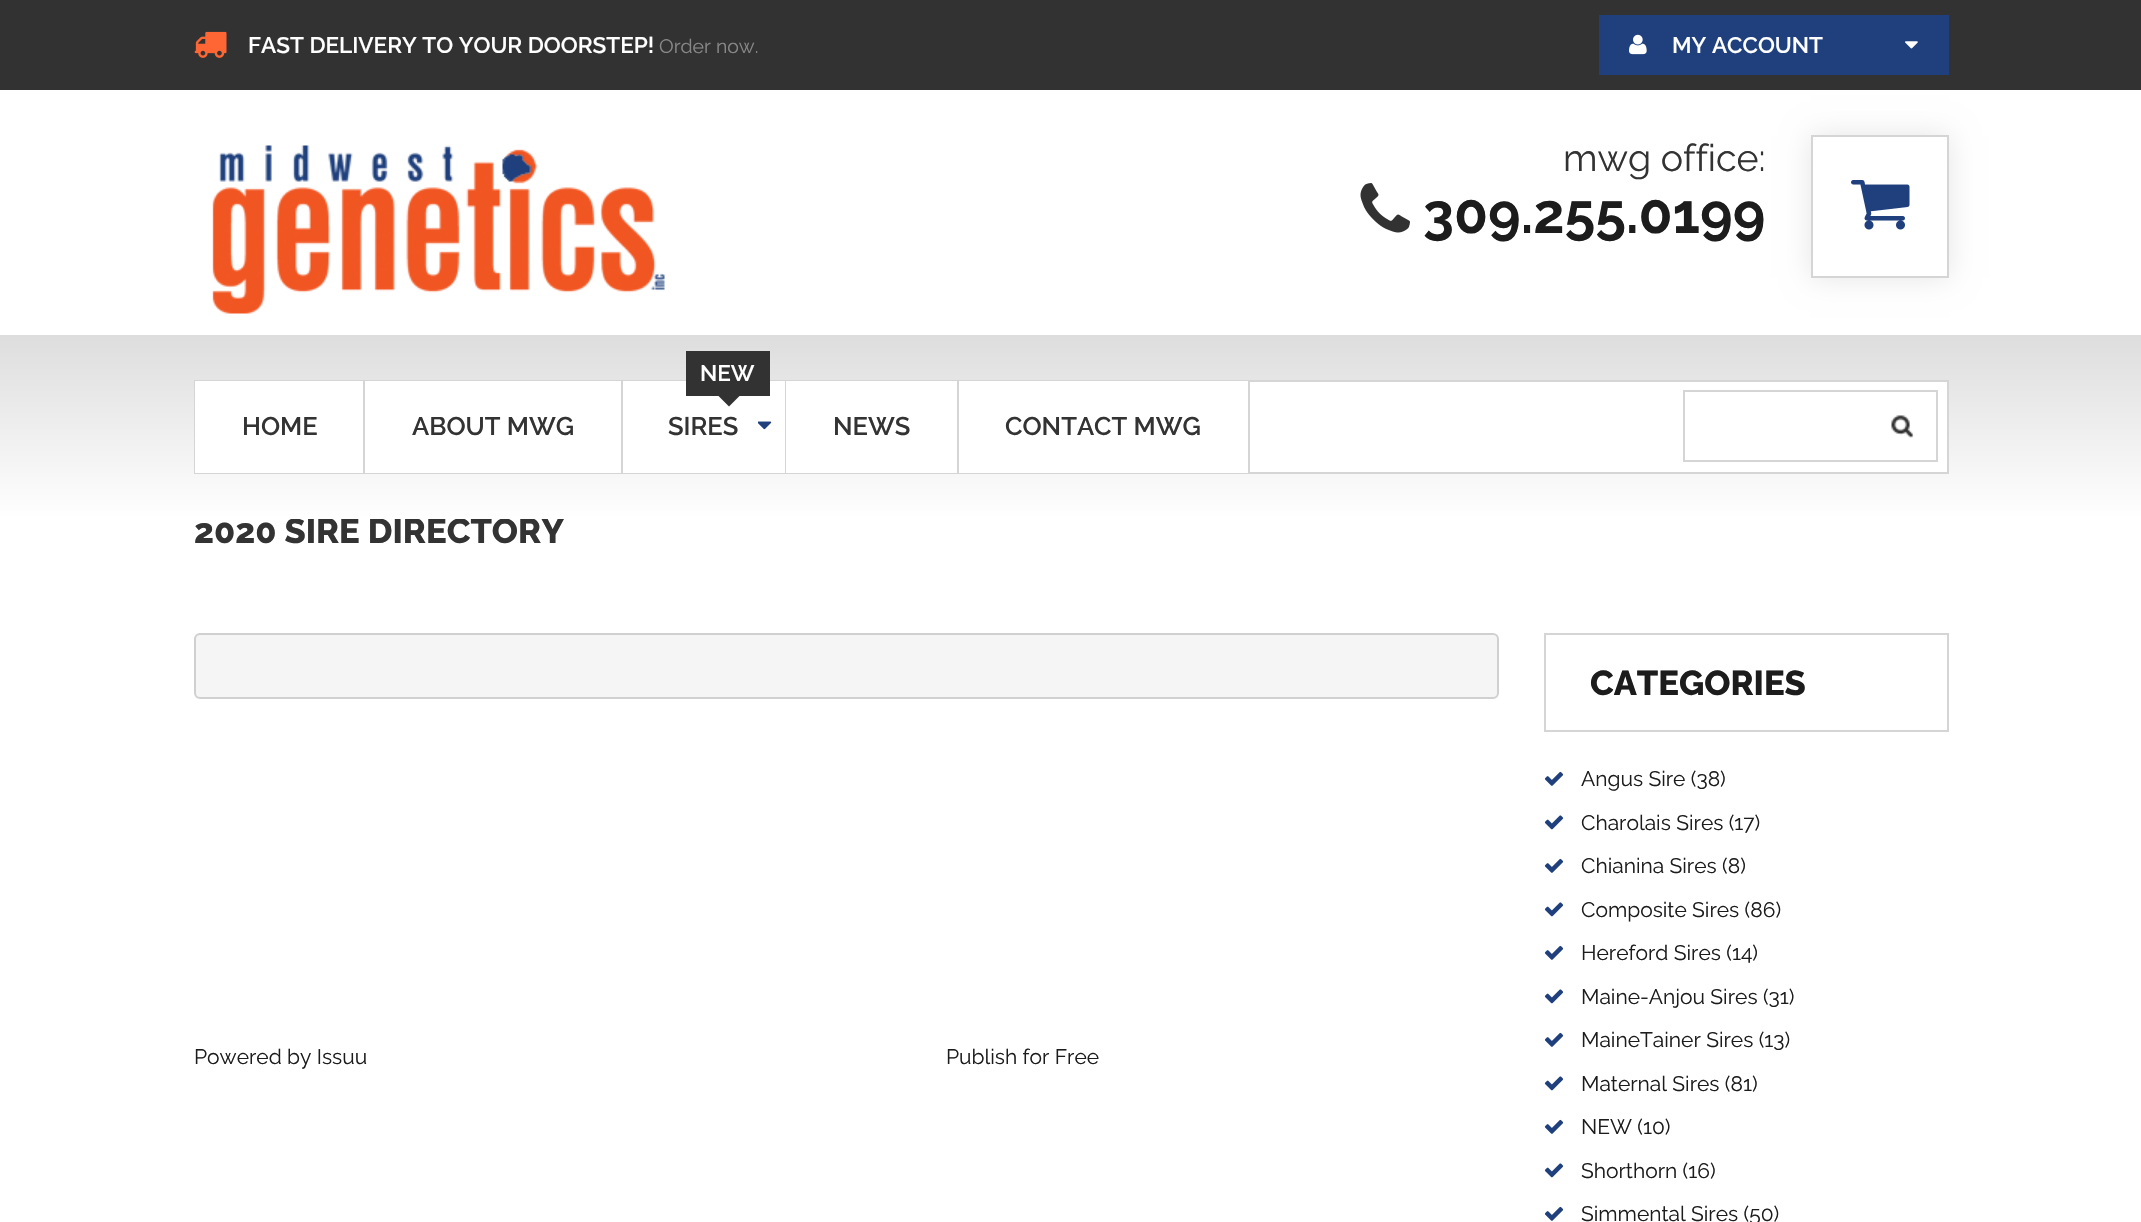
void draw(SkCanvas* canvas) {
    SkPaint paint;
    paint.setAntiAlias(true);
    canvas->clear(0xFFFFFFFF);
    paint.setColor(0xFF323232);
    canvas->drawRect(SkRect::MakeXYWH(0, 0, 2141, 90), paint);
    canvas->drawImageRect(SkImages::DeferredFromEncodedData(SkData::MakeFromFileName("img1.png")), SkRect::MakeXYWH(194, 31, 33, 27), SkSamplingOptions());
    SkFont font1(fontMgr->matchFamilyStyle("Raleway", SkFontStyle(600, SkFontStyle::kNormal_Width, SkFontStyle::kUpright_Slant)), 22.5f);
    font1.setSubpixel(true);
    paint.setColor(0xFFFFFFFF);
    canvas->drawString("FAST DELIVERY TO YOUR DOORSTEP!", 248, 53, font1, paint);
    SkFont font2(fontMgr->matchFamilyStyle("Raleway", SkFontStyle::Normal()), 19.5f);
    font2.setSubpixel(true);
    paint.setColor(0xFF888888);
    canvas->drawString("Order now.", 659, 53, font2, paint);
    paint.setColor(0xFF1F407D);
    canvas->drawRect(SkRect::MakeXYWH(1599, 15, 350, 60), paint);
    canvas->drawImageRect(SkImages::DeferredFromEncodedData(SkData::MakeFromFileName("img2.png")), SkRect::MakeXYWH(1629, 34, 18, 21), SkSamplingOptions());
    paint.setColor(0xFFFFFFFF);
    canvas->drawString("MY ACCOUNT", 1672, 53, font1, paint);
    canvas->drawImageRect(SkImages::DeferredFromEncodedData(SkData::MakeFromFileName("img3.png")), SkRect::MakeXYWH(1905, 41, 13, 8), SkSamplingOptions());
    canvas->drawImageRect(SkImages::DeferredFromEncodedData(SkData::MakeFromFileName("img4.png")), SkRect::MakeXYWH(212, 145, 453, 169), SkSamplingOptions());
    SkFont font3(fontMgr->matchFamilyStyle("Raleway", SkFontStyle::Normal()), 37.5f);
    font3.setSubpixel(true);
    paint.setColor(0xFF333333);
    canvas->drawString("mwg office:", 1563, 171, font3, paint);
    canvas->drawImageRect(SkImages::DeferredFromEncodedData(SkData::MakeFromFileName("img5.png")), SkRect::MakeXYWH(1360, 183, 50, 50), SkSamplingOptions());
    SkFont font4(fontMgr->matchFamilyStyle("Raleway", SkFontStyle::Bold()), 55.5f);
    font4.setSubpixel(true);
    paint.setColor(0xFF1C1C1C);
    canvas->drawString("309.255.0199", 1423, 233, font4, paint);
    paint.setColor(0x1A000000);
    paint.setMaskFilter(SkMaskFilter::MakeBlur(kNormal_SkBlurStyle, 13.5f));
    canvas->drawRect(SkRect::MakeXYWH(1811, 135, 138, 143), paint);
    paint.setMaskFilter(nullptr);
    paint.setColor(0xFFFFFFFF);
    canvas->drawRect(SkRect::MakeXYWH(1812, 136, 136, 141), paint);
    paint.setStyle(SkPaint::kStroke_Style);
    paint.setStrokeWidth(2);
    paint.setColor(0xFFD5D5D5);
    canvas->drawRect(SkRect::MakeXYWH(1812, 136, 136, 141), paint);
    canvas->drawImageRect(SkImages::DeferredFromEncodedData(SkData::MakeFromFileName("img6.png")), SkRect::MakeXYWH(1851, 180, 59, 50), SkSamplingOptions());
    SkFont font5(fontMgr->matchFamilyStyle("Raleway", SkFontStyle(800, SkFontStyle::kNormal_Width, SkFontStyle::kUpright_Slant)), 34.5f);
    font5.setSubpixel(true);
    paint.setStyle(SkPaint::kFill_Style);
    paint.setColor(0xFF333333);
    canvas->drawString("2020 SIRE DIRECTORY", 194, 543, font5, paint);
    {
        const SkColor colors[] = {0xFFDDDDDD, 0xFFFFFFFF};
        const float stops[] = {0, 1};
        const SkPoint ends[] = {{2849, 334}, {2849, 519}};
        paint.setShader(SkGradientShader::MakeLinear(ends, colors, stops, 2, SkTileMode::kClamp));
        paint.setAlpha(255);
    }
    canvas->drawRect(SkRect::MakeXYWH(0, 335, 2141, 184), paint);
    paint.setShader(nullptr);
    paint.setColor(0xFFFFFFFF);
    canvas->drawRect(SkRect::MakeXYWH(197, 382, 1750, 90), paint);
    paint.setStyle(SkPaint::kStroke_Style);
    paint.setColor(0xFFD5D5D5);
    canvas->drawRect(SkRect::MakeXYWH(195, 381, 1753, 92), paint);
    paint.setStyle(SkPaint::kFill_Style);
    canvas->drawRect(SkRect::MakeXYWH(363, 381, 2, 92), paint);
    paint.setStyle(SkPaint::kStroke_Style);
    paint.setColor(0xFFFFFFFF);
    canvas->drawRect(SkRect::MakeXYWH(196, 382, 166, 90), paint);
    SkFont font6(fontMgr->matchFamilyStyle("Raleway", SkFontStyle(600, SkFontStyle::kNormal_Width, SkFontStyle::kUpright_Slant)), 25.5f);
    font6.setSubpixel(true);
    paint.setStyle(SkPaint::kFill_Style);
    paint.setColor(0xFF333333);
    canvas->drawString("HOME", 242, 435, font6, paint);
    paint.setColor(0xFFD5D5D5);
    canvas->drawRect(SkRect::MakeXYWH(621, 381, 2, 92), paint);
    paint.setStyle(SkPaint::kStroke_Style);
    paint.setColor(0xFFFFFFFF);
    canvas->drawRect(SkRect::MakeXYWH(366, 382, 254, 90), paint);
    paint.setStyle(SkPaint::kFill_Style);
    paint.setColor(0xFF333333);
    canvas->drawString("ABOUT MWG", 412, 435, font6, paint);
    paint.setColor(0xFFD5D5D5);
    canvas->drawRect(SkRect::MakeXYWH(785, 381, 1, 92), paint);
    paint.setStyle(SkPaint::kStroke_Style);
    paint.setColor(0xFFFFFFFF);
    canvas->drawRect(SkRect::MakeXYWH(624, 382, 160, 90), paint);
    paint.setStyle(SkPaint::kFill_Style);
    paint.setColor(0xFF323232);
    canvas->drawRect(SkRect::MakeXYWH(686, 351, 84, 45), paint);
    paint.setColor(0xFFFFFFFF);
    canvas->drawString("NEW", 700, 381, font1, paint);
    paint.setColor(0xFF323232);
    canvas->drawPath(SkPathBuilder().moveTo(718.5f, 396).lineTo(739.5f, 396).lineTo(729, 406.5f).close().detach(), paint);
    paint.setColor(0xFF333333);
    canvas->drawString("SIRES", 668, 435, font6, paint);
    canvas->drawImageRect(SkImages::DeferredFromEncodedData(SkData::MakeFromFileName("img7.png")), SkRect::MakeXYWH(758, 421, 14, 9), SkSamplingOptions());
    paint.setColor(0xFFD5D5D5);
    canvas->drawRect(SkRect::MakeXYWH(957, 381, 2, 92), paint);
    paint.setStyle(SkPaint::kStroke_Style);
    paint.setColor(0xFFFFFFFF);
    canvas->drawRect(SkRect::MakeXYWH(787, 382, 169, 90), paint);
    paint.setStyle(SkPaint::kFill_Style);
    paint.setColor(0xFF333333);
    canvas->drawString("NEWS", 833, 435, font6, paint);
    paint.setColor(0xFFD5D5D5);
    canvas->drawRect(SkRect::MakeXYWH(1248, 381, 2, 92), paint);
    paint.setStyle(SkPaint::kStroke_Style);
    paint.setColor(0xFFFFFFFF);
    canvas->drawRect(SkRect::MakeXYWH(960, 382, 287, 90), paint);
    paint.setStyle(SkPaint::kFill_Style);
    paint.setColor(0xFF333333);
    canvas->drawString("CONTACT MWG", 1005, 435, font6, paint);
    paint.setStyle(SkPaint::kStroke_Style);
    paint.setColor(0xFFD5D5D5);
    canvas->drawRect(SkRect::MakeXYWH(1684, 391, 253, 70), paint);
    canvas->drawImageRect(SkImages::DeferredFromEncodedData(SkData::MakeFromFileName("img8.png")), SkRect::MakeXYWH(1891, 415, 23, 23), SkSamplingOptions());
    paint.setStyle(SkPaint::kFill_Style);
    paint.setColor(0xFFF5F5F5);
    canvas->drawRoundRect(SkRect::MakeXYWH(195, 634, 1303, 64), 5, 5, paint);
    paint.setStyle(SkPaint::kStroke_Style);
    paint.setColor(0xFFD0D0D0);
    canvas->drawRoundRect(SkRect::MakeXYWH(195, 634, 1303, 64), 5, 5, paint);
    SkFont font7(fontMgr->matchFamilyStyle("Raleway", SkFontStyle::Normal()), 21);
    font7.setSubpixel(true);
    paint.setStyle(SkPaint::kFill_Style);
    paint.setColor(0xFF1C1C1C);
    canvas->drawString("Powered by Issuu", 194, 1064, font7, paint);
    canvas->drawString("Publish for Free", 946, 1064, font7, paint);
    paint.setStyle(SkPaint::kStroke_Style);
    paint.setColor(0xFFD5D5D5);
    canvas->drawRect(SkRect::MakeXYWH(1545, 634, 403, 97), paint);
    paint.setStyle(SkPaint::kFill_Style);
    paint.setColor(0xFF1C1C1C);
    canvas->drawString("CATEGORIES", 1590, 695, font5, paint);
    canvas->drawImageRect(SkImages::DeferredFromEncodedData(SkData::MakeFromFileName("img9.png")), SkRect::MakeXYWH(1544, 771, 20, 15), SkSamplingOptions());
    canvas->drawString("Angus Sire (38)", 1581, 786, font7, paint);
    canvas->drawImageRect(SkImages::DeferredFromEncodedData(SkData::MakeFromFileName("img10.png")), SkRect::MakeXYWH(1544, 815, 20, 15), SkSamplingOptions());
    canvas->drawString("Charolais Sires (17)", 1581, 830, font7, paint);
    canvas->drawImageRect(SkImages::DeferredFromEncodedData(SkData::MakeFromFileName("img9.png")), SkRect::MakeXYWH(1544, 858, 20, 15), SkSamplingOptions());
    canvas->drawString("Chianina Sires (8)", 1581, 873, font7, paint);
    canvas->drawImageRect(SkImages::DeferredFromEncodedData(SkData::MakeFromFileName("img10.png")), SkRect::MakeXYWH(1544, 902, 20, 15), SkSamplingOptions());
    canvas->drawString("Composite Sires (86)", 1581, 917, font7, paint);
    canvas->drawImageRect(SkImages::DeferredFromEncodedData(SkData::MakeFromFileName("img9.png")), SkRect::MakeXYWH(1544, 945, 20, 15), SkSamplingOptions());
    canvas->drawString("Hereford Sires (14)", 1581, 960, font7, paint);
    canvas->drawImageRect(SkImages::DeferredFromEncodedData(SkData::MakeFromFileName("img10.png")), SkRect::MakeXYWH(1544, 989, 20, 15), SkSamplingOptions());
    canvas->drawString("Maine-Anjou Sires (31)", 1581, 1004, font7, paint);
    canvas->drawImageRect(SkImages::DeferredFromEncodedData(SkData::MakeFromFileName("img9.png")), SkRect::MakeXYWH(1544, 1032, 20, 15), SkSamplingOptions());
    canvas->drawString("MaineTainer Sires (13)", 1581, 1047, font7, paint);
    canvas->drawImageRect(SkImages::DeferredFromEncodedData(SkData::MakeFromFileName("img10.png")), SkRect::MakeXYWH(1544, 1076, 20, 15), SkSamplingOptions());
    canvas->drawString("Maternal Sires (81)", 1581, 1091, font7, paint);
    canvas->drawImageRect(SkImages::DeferredFromEncodedData(SkData::MakeFromFileName("img9.png")), SkRect::MakeXYWH(1544, 1119, 20, 15), SkSamplingOptions());
    canvas->drawString("NEW (10)", 1581, 1134, font7, paint);
    canvas->drawImageRect(SkImages::DeferredFromEncodedData(SkData::MakeFromFileName("img10.png")), SkRect::MakeXYWH(1544, 1163, 20, 15), SkSamplingOptions());
    canvas->drawString("Shorthorn (16)", 1581, 1178, font7, paint);
    canvas->drawImageRect(SkImages::DeferredFromEncodedData(SkData::MakeFromFileName("img9.png")), SkRect::MakeXYWH(1544, 1206, 20, 15), SkSamplingOptions());
    canvas->drawString("Simmental Sires (50)", 1581, 1221, font7, paint);
}
